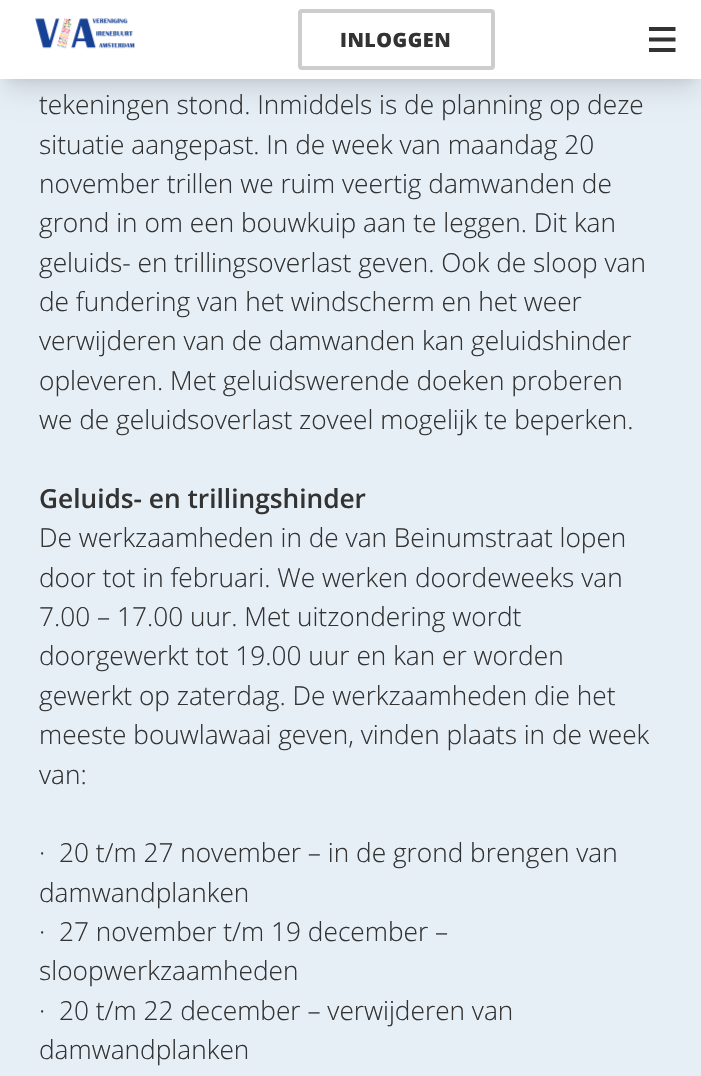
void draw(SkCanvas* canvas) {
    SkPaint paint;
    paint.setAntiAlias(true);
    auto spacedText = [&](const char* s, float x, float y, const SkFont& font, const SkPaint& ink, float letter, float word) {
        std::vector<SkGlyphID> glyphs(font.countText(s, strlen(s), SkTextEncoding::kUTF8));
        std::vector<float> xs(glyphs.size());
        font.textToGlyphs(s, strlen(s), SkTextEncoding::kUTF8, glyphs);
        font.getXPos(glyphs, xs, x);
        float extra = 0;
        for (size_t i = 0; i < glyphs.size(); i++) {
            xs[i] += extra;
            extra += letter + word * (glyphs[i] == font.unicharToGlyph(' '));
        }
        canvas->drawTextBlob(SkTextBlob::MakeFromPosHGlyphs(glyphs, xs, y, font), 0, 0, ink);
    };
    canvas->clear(0xFFE6EFF6);
    paint.setColor(0x1A000000);
    paint.setMaskFilter(SkMaskFilter::MakeBlur(kNormal_SkBlurStyle, 5));
    canvas->drawRect(SkRect::MakeXYWH(7, 14, 688, 65), paint);
    paint.setMaskFilter(nullptr);
    paint.setMaskFilter(SkMaskFilter::MakeBlur(kNormal_SkBlurStyle, 13));
    canvas->drawRect(SkRect::MakeXYWH(5, 23, 692, 68), paint);
    paint.setMaskFilter(nullptr);
    paint.setColor(0xFFFFFFFF);
    canvas->drawRect(SkRect::MakeXYWH(0, 0, 701, 79), paint);
    canvas->drawImageRect(SkImages::DeferredFromEncodedData(SkData::MakeFromFileName("img1.png")), SkRect::MakeXYWH(35, 18, 100, 31), SkSamplingOptions());
    paint.setStyle(SkPaint::kStroke_Style);
    paint.setStrokeWidth(4);
    paint.setColor(0xFFCDCDCD);
    canvas->drawRoundRect(SkRect::MakeXYWH(300, 11, 193, 57), 2, 2, paint);
    SkFont font1(fontMgr->matchFamilyStyle("Open Sans", SkFontStyle(800, SkFontStyle::kNormal_Width, SkFontStyle::kUpright_Slant)), 19.75f);
    font1.setSubpixel(true);
    paint.setStyle(SkPaint::kFill_Style);
    paint.setColor(0xFF333333);
    spacedText("INLOGGEN", 340, 47, font1, paint, 0.5f, 0);
    paint.setStyle(SkPaint::kStroke_Style);
    paint.setStrokeWidth(3.9f);
    canvas->drawPath(SkPathBuilder().moveTo(649, 29).lineTo(675.5f, 29).moveTo(649, 39.5f).lineTo(675.5f, 39.5f).moveTo(649, 50).lineTo(675.5f, 50).detach(), paint);
    SkFont font2(fontMgr->matchFamilyStyle("Open Sans", SkFontStyle(300, SkFontStyle::kNormal_Width, SkFontStyle::kUpright_Slant)), 26.25f);
    font2.setSubpixel(true);
    paint.setStyle(SkPaint::kFill_Style);
    canvas->drawString("tekeningen stond. Inmiddels is de planning op deze", 39, 114, font2, paint);
    canvas->drawString("situatie aangepast. In de week van maandag 20", 39, 154, font2, paint);
    canvas->drawString("november trillen we ruim veertig damwanden de", 39, 193, font2, paint);
    canvas->drawString("grond in om een bouwkuip aan te leggen. Dit kan", 39, 232, font2, paint);
    canvas->drawString("geluids- en trillingsoverlast geven. Ook de sloop van", 39, 272, font2, paint);
    canvas->drawString("de fundering van het windscherm en het weer", 39, 311, font2, paint);
    canvas->drawString("verwijderen van de damwanden kan geluidshinder", 39, 350, font2, paint);
    canvas->drawString("opleveren. Met geluidswerende doeken proberen", 39, 390, font2, paint);
    canvas->drawString("we de geluidsoverlast zoveel mogelijk te beperken.", 39, 429, font2, paint);
    SkFont font3(fontMgr->matchFamilyStyle("Open Sans", SkFontStyle(600, SkFontStyle::kNormal_Width, SkFontStyle::kUpright_Slant)), 26.25f);
    font3.setSubpixel(true);
    canvas->drawString("Geluids- en trillingshinder", 39, 508, font3, paint);
    canvas->drawString("De werkzaamheden in de van Beinumstraat lopen", 39, 547, font2, paint);
    canvas->drawString("door tot in februari. We werken doordeweeks van", 39, 587, font2, paint);
    canvas->drawString("7.00 – 17.00 uur. Met uitzondering wordt", 39, 626, font2, paint);
    canvas->drawString("doorgewerkt tot 19.00 uur en kan er worden", 39, 665, font2, paint);
    canvas->drawString("gewerkt op zaterdag. De werkzaamheden die het", 39, 705, font2, paint);
    canvas->drawString("meeste bouwlawaai geven, vinden plaats in de week", 39, 744, font2, paint);
    canvas->drawString("van:", 39, 784, font2, paint);
    canvas->drawString("·  20 t/m 27 november – in de grond brengen van", 39, 862, font2, paint);
    canvas->drawString("damwandplanken", 39, 902, font2, paint);
    canvas->drawString("·  27 november t/m 19 december –", 39, 941, font2, paint);
    canvas->drawString("sloopwerkzaamheden", 39, 980, font2, paint);
    canvas->drawString("·  20 t/m 22 december – verwijderen van", 39, 1020, font2, paint);
    canvas->drawString("damwandplanken", 39, 1059, font2, paint);
}
